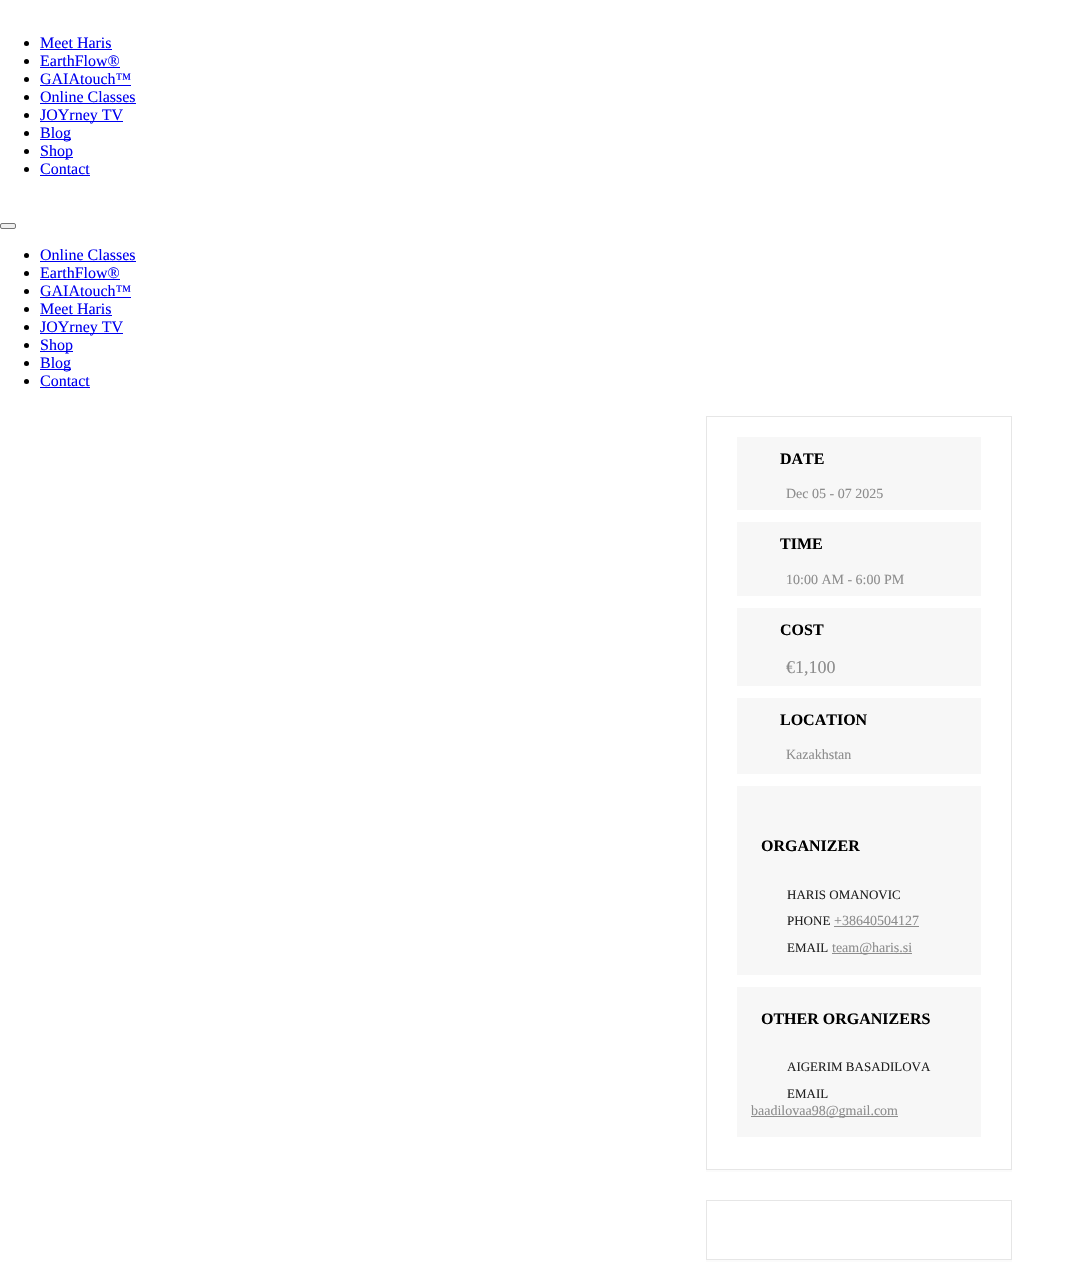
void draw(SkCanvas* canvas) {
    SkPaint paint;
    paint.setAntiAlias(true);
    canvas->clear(0xFFFFFFFF);
    paint.setColor(0xFF000000);
    canvas->drawCircle(26.5f, 43.5f, 2.5f, paint);
    SkFont font1(fontMgr->matchFamilyStyle("Liberation Serif", SkFontStyle::Normal()), 16);
    font1.setSubpixel(true);
    paint.setColor(0xFF0000EE);
    canvas->drawString("Meet Haris", 40, 48, font1, paint);
    canvas->drawRect(SkRect::MakeXYWH(40, 49, 72, 1), paint);
    paint.setColor(0xFF000000);
    canvas->drawCircle(26.5f, 61.5f, 2.5f, paint);
    paint.setColor(0xFF0000EE);
    canvas->drawString("EarthFlow®", 40, 66, font1, paint);
    canvas->drawRect(SkRect::MakeXYWH(40, 67, 80, 1), paint);
    paint.setColor(0xFF000000);
    canvas->drawCircle(26.5f, 79.5f, 2.5f, paint);
    paint.setColor(0xFF0000EE);
    canvas->drawString("GAIAtouch™", 40, 84, font1, paint);
    canvas->drawRect(SkRect::MakeXYWH(40, 85, 91, 1), paint);
    paint.setColor(0xFF000000);
    canvas->drawCircle(26.5f, 97.5f, 2.5f, paint);
    paint.setColor(0xFF0000EE);
    canvas->drawString("Online Classes", 40, 102, font1, paint);
    canvas->drawRect(SkRect::MakeXYWH(40, 103, 96, 1), paint);
    paint.setColor(0xFF000000);
    canvas->drawCircle(26.5f, 115.5f, 2.5f, paint);
    paint.setColor(0xFF0000EE);
    canvas->drawRect(SkRect::MakeXYWH(40, 121, 83, 1), paint);
    canvas->drawString("JOYrney TV", 40, 120, font1, paint);
    paint.setColor(0xFF000000);
    canvas->drawCircle(26.5f, 133.5f, 2.5f, paint);
    paint.setColor(0xFF0000EE);
    canvas->drawRect(SkRect::MakeXYWH(40, 139, 31, 1), paint);
    canvas->drawString("Blog", 40, 138, font1, paint);
    paint.setColor(0xFF000000);
    canvas->drawCircle(26.5f, 151.5f, 2.5f, paint);
    paint.setColor(0xFF0000EE);
    canvas->drawRect(SkRect::MakeXYWH(40, 157, 33, 1), paint);
    canvas->drawString("Shop", 40, 156, font1, paint);
    paint.setColor(0xFF000000);
    canvas->drawCircle(26.5f, 169.5f, 2.5f, paint);
    paint.setColor(0xFF0000EE);
    canvas->drawString("Contact", 40, 174, font1, paint);
    canvas->drawRect(SkRect::MakeXYWH(40, 175, 50, 1), paint);
    paint.setColor(0xFFEFEFEF);
    canvas->drawRoundRect(SkRect::MakeXYWH(0.5f, 223.5f, 15, 5), 1.5f, 1.5f, paint);
    paint.setStyle(SkPaint::kStroke_Style);
    paint.setStrokeWidth(1);
    paint.setColor(0xFF767676);
    canvas->drawRoundRect(SkRect::MakeXYWH(0.5f, 223.5f, 15, 5), 1.5f, 1.5f, paint);
    paint.setStyle(SkPaint::kFill_Style);
    paint.setColor(0xFF000000);
    canvas->drawCircle(26.5f, 255.5f, 2.5f, paint);
    paint.setColor(0xFF0000EE);
    canvas->drawString("Online Classes", 40, 260, font1, paint);
    canvas->drawRect(SkRect::MakeXYWH(40, 261, 96, 1), paint);
    paint.setColor(0xFF000000);
    canvas->drawCircle(26.5f, 273.5f, 2.5f, paint);
    paint.setColor(0xFF0000EE);
    canvas->drawString("EarthFlow®", 40, 278, font1, paint);
    canvas->drawRect(SkRect::MakeXYWH(40, 279, 80, 1), paint);
    paint.setColor(0xFF000000);
    canvas->drawCircle(26.5f, 291.5f, 2.5f, paint);
    paint.setColor(0xFF0000EE);
    canvas->drawString("GAIAtouch™", 40, 296, font1, paint);
    canvas->drawRect(SkRect::MakeXYWH(40, 297, 91, 1), paint);
    paint.setColor(0xFF000000);
    canvas->drawCircle(26.5f, 309.5f, 2.5f, paint);
    paint.setColor(0xFF0000EE);
    canvas->drawString("Meet Haris", 40, 314, font1, paint);
    canvas->drawRect(SkRect::MakeXYWH(40, 315, 72, 1), paint);
    paint.setColor(0xFF000000);
    canvas->drawCircle(26.5f, 327.5f, 2.5f, paint);
    paint.setColor(0xFF0000EE);
    canvas->drawRect(SkRect::MakeXYWH(40, 333, 83, 1), paint);
    canvas->drawString("JOYrney TV", 40, 332, font1, paint);
    paint.setColor(0xFF000000);
    canvas->drawCircle(26.5f, 345.5f, 2.5f, paint);
    paint.setColor(0xFF0000EE);
    canvas->drawRect(SkRect::MakeXYWH(40, 351, 33, 1), paint);
    canvas->drawString("Shop", 40, 350, font1, paint);
    paint.setColor(0xFF000000);
    canvas->drawCircle(26.5f, 363.5f, 2.5f, paint);
    paint.setColor(0xFF0000EE);
    canvas->drawRect(SkRect::MakeXYWH(40, 369, 31, 1), paint);
    canvas->drawString("Blog", 40, 368, font1, paint);
    paint.setColor(0xFF000000);
    canvas->drawCircle(26.5f, 381.5f, 2.5f, paint);
    paint.setColor(0xFF0000EE);
    canvas->drawString("Contact", 40, 386, font1, paint);
    canvas->drawRect(SkRect::MakeXYWH(40, 387, 50, 1), paint);
    paint.setColor(0xFFFBFBFB);
    canvas->drawRect(SkRect::MakeXYWH(706, 1170, 306, 2), paint);
    paint.setStyle(SkPaint::kStroke_Style);
    paint.setColor(0xFFE6E6E6);
    canvas->drawRect(SkRect::MakeXYWH(706.5f, 416.5f, 305, 753), paint);
    paint.setStyle(SkPaint::kFill_Style);
    paint.setColor(0xFFF7F7F7);
    canvas->drawRect(SkRect::MakeXYWH(737, 437, 244, 73), paint);
    SkFont font2(fontMgr->matchFamilyStyle("Liberation Serif", SkFontStyle::Bold()), 16);
    font2.setSubpixel(true);
    paint.setColor(0xFF000000);
    canvas->drawString("DATE", 780, 464, font2, paint);
    SkFont font3(fontMgr->matchFamilyStyle("Liberation Serif", SkFontStyle::Normal()), 14);
    font3.setSubpixel(true);
    paint.setColor(0xFF8D8D8D);
    canvas->drawString("Dec 05 - 07 2025", 786, 498, font3, paint);
    paint.setColor(0xFFF7F7F7);
    canvas->drawRect(SkRect::MakeXYWH(737, 522, 244, 74), paint);
    paint.setColor(0xFF000000);
    canvas->drawString("TIME", 780, 549, font2, paint);
    paint.setColor(0xFF8D8D8D);
    canvas->drawString("10:00 AM - 6:00 PM", 786, 584, font3, paint);
    paint.setColor(0xFFF7F7F7);
    canvas->drawRect(SkRect::MakeXYWH(737, 608, 244, 78), paint);
    paint.setColor(0xFF000000);
    canvas->drawString("COST", 780, 635, font2, paint);
    SkFont font4(fontMgr->matchFamilyStyle("Liberation Serif", SkFontStyle::Normal()), 18);
    font4.setSubpixel(true);
    paint.setColor(0xFF8D8D8D);
    canvas->drawString("€1,100", 786, 673, font4, paint);
    paint.setColor(0xFFF7F7F7);
    canvas->drawRect(SkRect::MakeXYWH(737, 698, 244, 76), paint);
    paint.setColor(0xFF000000);
    canvas->drawString("LOCATION", 780, 725, font2, paint);
    paint.setColor(0xFF8D8D8D);
    canvas->drawString("Kazakhstan", 786, 759, font3, paint);
    paint.setColor(0xFFF7F7F7);
    canvas->drawRect(SkRect::MakeXYWH(737, 786, 244, 189), paint);
    paint.setColor(0xFF000000);
    canvas->drawString("ORGANIZER", 761, 851, font2, paint);
    SkFont font5(fontMgr->matchFamilyStyle("Liberation Serif", SkFontStyle::Normal()), 13);
    font5.setSubpixel(true);
    paint.setColor(0xFF222222);
    canvas->drawString("HARIS OMANOVIC", 787, 899, font5, paint);
    canvas->drawString("PHONE", 787, 925, font5, paint);
    paint.setColor(0xFF8D8D8D);
    canvas->drawString("+38640504127", 834, 925, font3, paint);
    canvas->drawRect(SkRect::MakeXYWH(834, 926, 85, 1), paint);
    paint.setColor(0xFF222222);
    canvas->drawString("EMAIL", 787, 952, font5, paint);
    paint.setColor(0xFF8D8D8D);
    canvas->drawRect(SkRect::MakeXYWH(832, 953, 80, 1), paint);
    canvas->drawString("team@haris.si", 832, 952, font3, paint);
    paint.setColor(0xFFF7F7F7);
    canvas->drawRect(SkRect::MakeXYWH(737, 987, 244, 150), paint);
    paint.setColor(0xFF000000);
    canvas->drawString("OTHER ORGANIZERS", 761, 1024, font2, paint);
    paint.setColor(0xFF222222);
    canvas->drawString("AIGERIM BASADILOVA", 787, 1071, font5, paint);
    canvas->drawString("EMAIL", 787, 1098, font5, paint);
    paint.setColor(0xFF8D8D8D);
    canvas->drawRect(SkRect::MakeXYWH(751, 1116, 147, 1), paint);
    canvas->drawString("baadilovaa98@gmail.com", 751, 1115, font3, paint);
    paint.setColor(0xFFFBFBFB);
    canvas->drawRect(SkRect::MakeXYWH(706, 1260, 306, 2), paint);
    paint.setStyle(SkPaint::kStroke_Style);
    paint.setColor(0xFFE6E6E6);
    canvas->drawRect(SkRect::MakeXYWH(706.5f, 1200.5f, 305, 59), paint);
}
